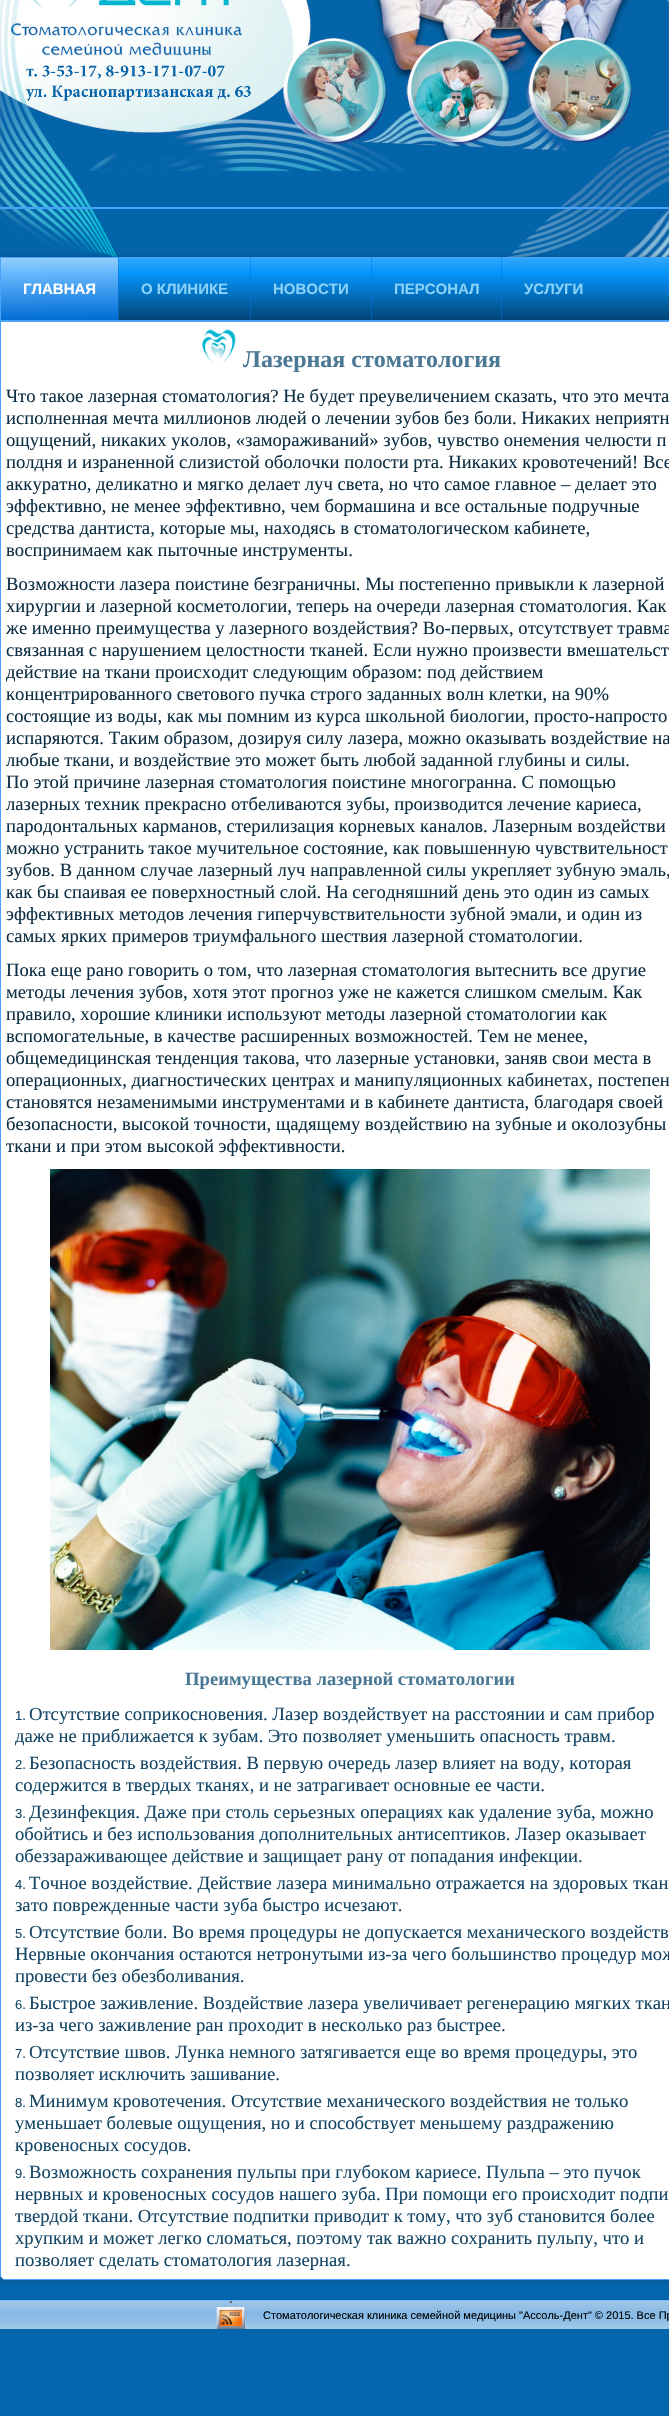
void draw(SkCanvas* canvas) {
    SkPaint paint;
    paint.setAntiAlias(true);
    canvas->clear(0xFF0365AB);
    canvas->drawImageRect(SkImages::DeferredFromEncodedData(SkData::MakeFromFileName("img1.png")), SkRect::MakeXYWH(0, 0, 669, 257), SkSamplingOptions());
    paint.setColor(0xFF49A3FD);
    canvas->drawRect(SkRect::MakeXYWH(0, 207, 669, 2), paint);
    paint.setColor(0x1A000000);
    paint.setMaskFilter(SkMaskFilter::MakeBlur(kNormal_SkBlurStyle, 1.5f));
    canvas->drawRoundRect(SkRect::MakeXYWH(-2, 255, 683, 2027), 7, 7, paint);
    paint.setMaskFilter(nullptr);
    paint.setColor(0xFFFFFFFF);
    canvas->drawPath(SkPathBuilder().moveTo(0.5f, 257.5f).lineTo(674.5f, 257.5f).lineTo(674.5f, 2275).cubicTo(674.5f, 2277.5f, 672.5f, 2279.5f, 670, 2279.5f).lineTo(5, 2279.5f).cubicTo(2.5f, 2279.5f, 0.5f, 2277.5f, 0.5f, 2275).close().detach(), paint);
    paint.setStyle(SkPaint::kStroke_Style);
    paint.setStrokeWidth(1);
    paint.setColor(0xFF49A3FD);
    canvas->drawPath(SkPathBuilder().moveTo(0.5f, 257.5f).lineTo(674.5f, 257.5f).lineTo(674.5f, 2275).cubicTo(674.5f, 2277.5f, 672.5f, 2279.5f, 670, 2279.5f).lineTo(5, 2279.5f).cubicTo(2.5f, 2279.5f, 0.5f, 2277.5f, 0.5f, 2275).close().detach(), paint);
    paint.setStyle(SkPaint::kFill_Style);
    {
        const SkColor colors[] = {0xFF31A7FC, 0xFF0494FB, 0xFF02416F};
        const float stops[] = {0, 0.24f, 1};
        const SkPoint ends[] = {{500, 258}, {500, 322}};
        paint.setShader(SkGradientShader::MakeLinear(ends, colors, stops, 3, SkTileMode::kClamp));
        paint.setAlpha(255);
    }
    canvas->drawRect(SkRect::MakeXYWH(1, 258, 668, 62), paint);
    paint.setShader(nullptr);
    paint.setColor(0xFF49A3FD);
    canvas->drawRect(SkRect::MakeXYWH(1, 320, 668, 2), paint);
    {
        const SkColor colors[] = {0xB3BDDEFE, 0xB3037FFC, 0xB3027DF7};
        const float stops[] = {0, 0.97f, 1};
        const SkPoint ends[] = {{59, 258}, {60, 320}};
        paint.setShader(SkGradientShader::MakeLinear(ends, colors, stops, 3, SkTileMode::kClamp));
        paint.setAlpha(255);
    }
    canvas->drawRect(SkRect::MakeXYWH(1, 258, 117, 62), paint);
    SkFont font1(fontMgr->matchFamilyStyle("Liberation Sans", SkFontStyle::Bold()), 15);
    font1.setSubpixel(true);
    paint.setShader(nullptr);
    paint.setColor(0xFFFFFFFF);
    canvas->drawString("ГЛАВНАЯ", 23, 294, font1, paint);
    canvas->drawImageRect(SkImages::DeferredFromEncodedData(SkData::MakeFromFileName("img2.png")), SkRect::MakeXYWH(118, 258, 1, 61), SkSamplingOptions());
    paint.setColor(0xFF8BD2F9);
    canvas->drawString("О КЛИНИКЕ", 141, 294, font1, paint);
    canvas->drawImageRect(SkImages::DeferredFromEncodedData(SkData::MakeFromFileName("img2.png")), SkRect::MakeXYWH(250, 258, 1, 61), SkSamplingOptions());
    canvas->drawString("НОВОСТИ", 273, 294, font1, paint);
    canvas->drawImageRect(SkImages::DeferredFromEncodedData(SkData::MakeFromFileName("img2.png")), SkRect::MakeXYWH(371, 258, 1, 61), SkSamplingOptions());
    canvas->drawString("ПЕРСОНАЛ", 394, 294, font1, paint);
    canvas->drawImageRect(SkImages::DeferredFromEncodedData(SkData::MakeFromFileName("img2.png")), SkRect::MakeXYWH(501, 258, 1, 61), SkSamplingOptions());
    canvas->drawString("УСЛУГИ", 524, 294, font1, paint);
    canvas->drawImageRect(SkImages::DeferredFromEncodedData(SkData::MakeFromFileName("img3.png")), SkRect::MakeXYWH(202, 329, 34, 34), SkSamplingOptions());
    SkFont font2(fontMgr->matchFamilyStyle("Liberation Serif", SkFontStyle::Bold()), 24);
    font2.setSubpixel(true);
    paint.setColor(0xFF4B7995);
    canvas->drawString("Лазерная стоматология", 243, 367, font2, paint);
    SkFont font3(fontMgr->matchFamilyStyle("Liberation Serif", SkFontStyle::Normal()), 18.65f);
    font3.setSubpixel(true);
    paint.setColor(0xFF0E2F43);
    canvas->drawString("Что такое лазерная стоматология? Не будет преувеличением сказать, что это мечта", 6, 402, font3, paint);
    canvas->drawString("исполненная мечта миллионов людей о лечении зубов без боли. Никаких неприятн", 6, 424, font3, paint);
    canvas->drawString("ощущений, никаких уколов, «замораживаний» зубов, чувство онемения челюсти п", 6, 446, font3, paint);
    canvas->drawString("полдня и израненной слизистой оболочки полости рта. Никаких кровотечений! Все", 6, 468, font3, paint);
    canvas->drawString("аккуратно, деликатно и мягко делает луч света, но что самое главное – делает это", 6, 490, font3, paint);
    canvas->drawString("эффективно, не менее эффективно, чем бормашина и все остальные подручные", 6, 512, font3, paint);
    canvas->drawString("средства дантиста, которые мы, находясь в стоматологическом кабинете,", 6, 534, font3, paint);
    canvas->drawString("воспринимаем как пыточные инструменты.", 6, 556, font3, paint);
    canvas->drawString("Возможности лазера поистине безграничны. Мы постепенно привыкли к лазерной", 6, 590, font3, paint);
    canvas->drawString("хирургии и лазерной косметологии, теперь на очереди лазерная стоматология. Как", 6, 612, font3, paint);
    canvas->drawString("же именно преимущества у лазерного воздействия? Во-первых, отсутствует травма", 6, 634, font3, paint);
    canvas->drawString("связанная с нарушением целостности тканей. Если нужно произвести вмешательст", 6, 656, font3, paint);
    canvas->drawString("действие на ткани происходит следующим образом: под действием", 6, 678, font3, paint);
    canvas->drawString("концентрированного светового пучка строго заданных волн клетки, на 90%", 6, 700, font3, paint);
    canvas->drawString("состоящие из воды, как мы помним из курса школьной биологии, просто-напросто", 6, 722, font3, paint);
    canvas->drawString("испаряются. Таким образом, дозируя силу лазера, можно оказывать воздействие на", 6, 744, font3, paint);
    canvas->drawString("любые ткани, и воздействие это может быть любой заданной глубины и силы.", 6, 766, font3, paint);
    canvas->drawString("По этой причине лазерная стоматология поистине многогранна. С помощью", 6, 788, font3, paint);
    canvas->drawString("лазерных техник прекрасно отбеливаются зубы, производится лечение кариеса,", 6, 810, font3, paint);
    canvas->drawString("пародонтальных карманов, стерилизация корневых каналов. Лазерным воздействи", 6, 832, font3, paint);
    canvas->drawString("можно устранить такое мучительное состояние, как повышенную чувствительност", 6, 854, font3, paint);
    canvas->drawString("зубов. В данном случае лазерный луч направленной силы укрепляет зубную эмаль,", 6, 876, font3, paint);
    canvas->drawString("как бы спаивая ее поверхностный слой. На сегодняшний день это один из самых", 6, 898, font3, paint);
    canvas->drawString("эффективных методов лечения гиперчувствительности зубной эмали, и один из", 6, 920, font3, paint);
    canvas->drawString("самых ярких примеров триумфального шествия лазерной стоматологии.", 6, 942, font3, paint);
    canvas->drawString("Пока еще рано говорить о том, что лазерная стоматология вытеснить все другие", 6, 976, font3, paint);
    canvas->drawString("методы лечения зубов, хотя этот прогноз уже не кажется слишком смелым. Как", 6, 998, font3, paint);
    canvas->drawString("правило, хорошие клиники используют методы лазерной стоматологии как", 6, 1020, font3, paint);
    canvas->drawString("вспомогательные, в качестве расширенных возможностей. Тем не менее,", 6, 1042, font3, paint);
    canvas->drawString("общемедицинская тенденция такова, что лазерные установки, заняв свои места в", 6, 1064, font3, paint);
    canvas->drawString("операционных, диагностических центрах и манипуляционных кабинетах, постепен", 6, 1086, font3, paint);
    canvas->drawString("становятся незаменимыми инструментами и в кабинете дантиста, благодаря своей", 6, 1108, font3, paint);
    canvas->drawString("безопасности, высокой точности, щадящему воздействию на зубные и околозубны", 6, 1130, font3, paint);
    canvas->drawString("ткани и при этом высокой эффективности.", 6, 1152, font3, paint);
    canvas->drawImageRect(SkImages::DeferredFromEncodedData(SkData::MakeFromFileName("img4.png")), SkRect::MakeXYWH(50, 1169, 600, 481), SkSamplingOptions());
    SkFont font4(fontMgr->matchFamilyStyle("Liberation Serif", SkFontStyle::Bold()), 18.65f);
    font4.setSubpixel(true);
    paint.setColor(0xFF4B7995);
    canvas->drawString("Преимущества лазерной стоматологии", 185, 1685, font4, paint);
    SkFont font5(fontMgr->matchFamilyStyle("Liberation Sans", SkFontStyle::Normal()), 13);
    font5.setSubpixel(true);
    paint.setColor(0xFF154665);
    canvas->drawString("1.", 15, 1720, font5, paint);
    canvas->drawString("Отсутствие соприкосновения. Лазер воздействует на расстоянии и сам прибор", 29, 1720, font3, paint);
    canvas->drawString("даже не приближается к зубам. Это позволяет уменьшить опасность травм.", 15, 1742, font3, paint);
    canvas->drawString("2.", 15, 1769, font5, paint);
    canvas->drawString("Безопасность воздействия. В первую очередь лазер влияет на воду, которая", 29, 1769, font3, paint);
    canvas->drawString("содержится в твердых тканях, и не затрагивает основные ее части.", 15, 1791, font3, paint);
    canvas->drawString("3.", 15, 1818, font5, paint);
    canvas->drawString("Дезинфекция. Даже при столь серьезных операциях как удаление зуба, можно", 29, 1818, font3, paint);
    canvas->drawString("обойтись и без использования дополнительных антисептиков. Лазер оказывает", 15, 1840, font3, paint);
    canvas->drawString("обеззараживающее действие и защищает рану от попадания инфекции.", 15, 1862, font3, paint);
    canvas->drawString("4.", 15, 1889, font5, paint);
    canvas->drawString("Точное воздействие. Действие лазера минимально отражается на здоровых ткан", 29, 1889, font3, paint);
    canvas->drawString("зато поврежденные части зуба быстро исчезают.", 15, 1911, font3, paint);
    canvas->drawString("5.", 15, 1938, font5, paint);
    canvas->drawString("Отсутствие боли. Во время процедуры не допускается механического воздейств", 29, 1938, font3, paint);
    canvas->drawString("Нервные окончания остаются нетронутыми из-за чего большинство процедур мож", 15, 1960, font3, paint);
    canvas->drawString("провести без обезболивания.", 15, 1982, font3, paint);
    canvas->drawString("6.", 15, 2009, font5, paint);
    canvas->drawString("Быстрое заживление. Воздействие лазера увеличивает регенерацию мягких ткан", 29, 2009, font3, paint);
    canvas->drawString("из-за чего заживление ран проходит в несколько раз быстрее.", 15, 2031, font3, paint);
    canvas->drawString("7.", 15, 2058, font5, paint);
    canvas->drawString("Отсутствие швов. Лунка немного затягивается еще во время процедуры, это", 29, 2058, font3, paint);
    canvas->drawString("позволяет исключить зашивание.", 15, 2080, font3, paint);
    canvas->drawString("8.", 15, 2107, font5, paint);
    canvas->drawString("Минимум кровотечения. Отсутствие механического воздействия не только", 29, 2107, font3, paint);
    canvas->drawString("уменьшает болевые ощущения, но и способствует меньшему раздражению", 15, 2129, font3, paint);
    canvas->drawString("кровеносных сосудов.", 15, 2151, font3, paint);
    canvas->drawString("9.", 15, 2178, font5, paint);
    canvas->drawString("Возможность сохранения пульпы при глубоком кариесе. Пульпа – это пучок", 29, 2178, font3, paint);
    canvas->drawString("нервных и кровеносных сосудов нашего зуба. При помощи его происходит подпи", 15, 2200, font3, paint);
    canvas->drawString("твердой ткани. Отсутствие подпитки приводит к тому, что зуб становится более", 15, 2222, font3, paint);
    canvas->drawString("хрупким и может легко сломаться, поэтому так важно сохранить пульпу, что и", 15, 2244, font3, paint);
    canvas->drawString("позволяет сделать стоматология лазерная.", 15, 2266, font3, paint);
    {
        const SkColor colors[] = {0xFFA2C8E6, 0xFF89BBE5, 0xFF85BAE5, 0xFF89BBE5, 0xFFA2C8E6};
        const float stops[] = {0, 0.4f, 0.5f, 0.6f, 1};
        const SkPoint ends[] = {{500, 2300}, {500, 2329}};
        paint.setShader(SkGradientShader::MakeLinear(ends, colors, stops, 5, SkTileMode::kClamp));
        paint.setAlpha(255);
    }
    canvas->drawRect(SkRect::MakeXYWH(0, 2301, 669, 28), paint);
    paint.setShader(nullptr);
    paint.setColor(0xFF77BAFE);
    canvas->drawRect(SkRect::MakeXYWH(0, 2300, 669, 1), paint);
    canvas->drawImageRect(SkImages::DeferredFromEncodedData(SkData::MakeFromFileName("img5.png")), SkRect::MakeXYWH(216, 2301, 29, 28), SkSamplingOptions());
    SkFont font6(fontMgr->matchFamilyStyle("Liberation Sans", SkFontStyle::Normal()), 11);
    font6.setSubpixel(true);
    paint.setColor(0xFF000000);
    canvas->drawString("Стоматологическая клиника семейной медицины \"Ассоль-Дент\" © 2015. Все Пр", 263, 2319, font6, paint);
}
